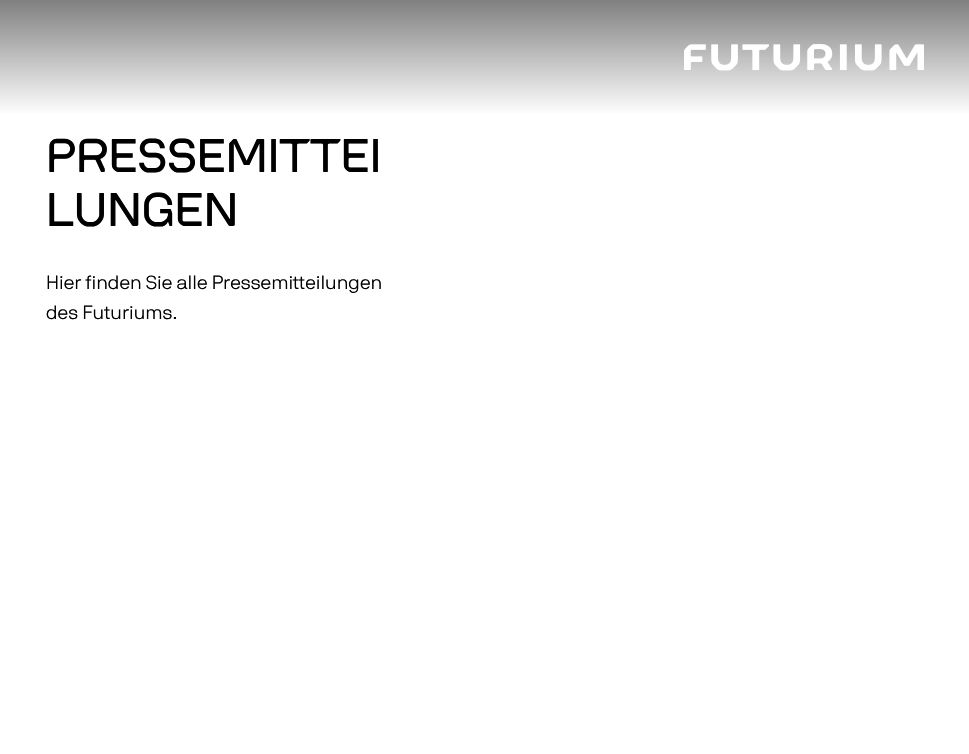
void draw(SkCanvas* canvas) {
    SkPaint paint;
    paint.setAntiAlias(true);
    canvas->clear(0xFFFFFFFF);
    {
        const SkColor colors[] = {0xFFFFFFFF, 0xFF808080};
        const float stops[] = {0, 1};
        const SkPoint ends[] = {{485, 115}, {485, 0}};
        paint.setShader(SkGradientShader::MakeLinear(ends, colors, stops, 2, SkTileMode::kClamp));
        paint.setAlpha(255);
    }
    canvas->drawRect(SkRect::MakeXYWH(0, 0, 969, 113), paint);
    canvas->drawImageRect(SkImages::DeferredFromEncodedData(SkData::MakeFromFileName("img1.png")), SkRect::MakeXYWH(684, 44, 240, 27), SkSamplingOptions());
    SkFont font1(fontMgr->matchFamilyStyle("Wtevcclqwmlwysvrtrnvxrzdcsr", SkFontStyle::Normal()), 50);
    font1.setSubpixel(true);
    paint.setShader(nullptr);
    paint.setColor(0xFF000000);
    canvas->drawString("PRESSEMITTEI", 46, 172, font1, paint);
    canvas->drawString("LUNGEN", 46, 226, font1, paint);
    SkFont font2(fontMgr->matchFamilyStyle("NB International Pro", SkFontStyle(300, SkFontStyle::kNormal_Width, SkFontStyle::kUpright_Slant)), 19);
    font2.setSubpixel(true);
    canvas->drawString("Hier finden Sie alle Pressemitteilungen", 46, 289, font2, paint);
    canvas->drawString("des Futuriums.", 46, 319, font2, paint);
}
